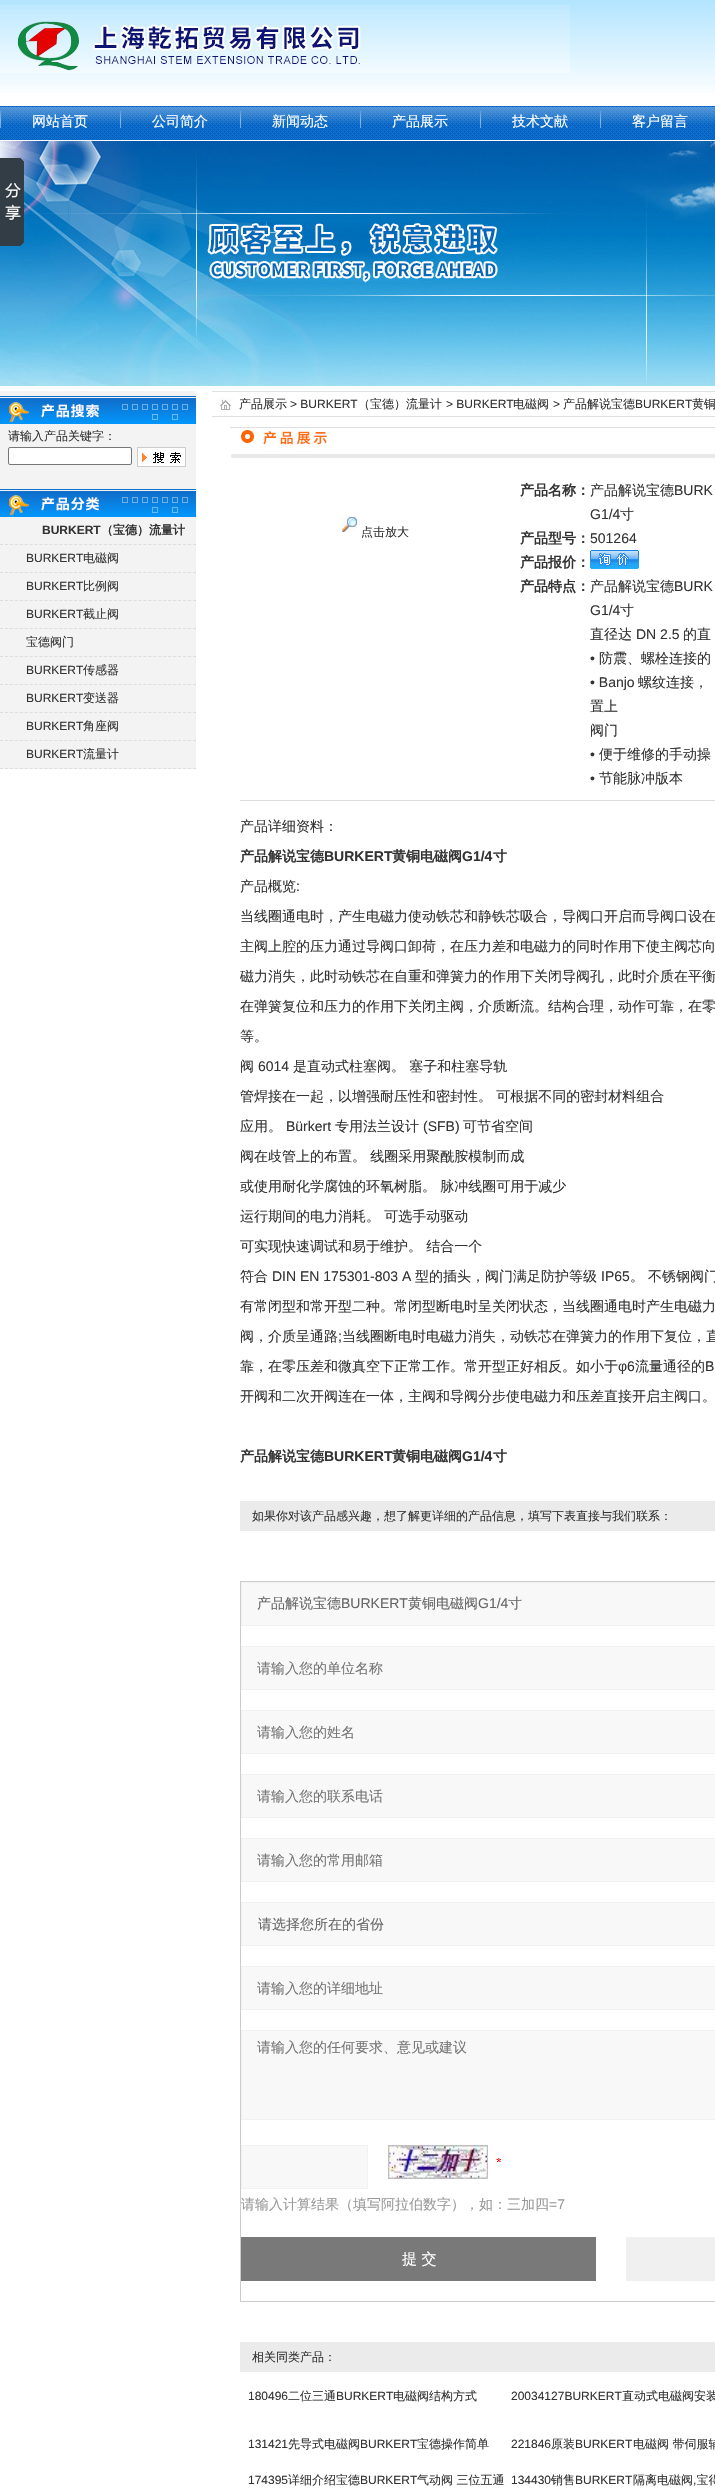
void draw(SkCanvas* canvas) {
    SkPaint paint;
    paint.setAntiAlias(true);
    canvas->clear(0xFFFFFFFF);
    canvas->drawImageRect(SkImages::DeferredFromEncodedData(SkData::MakeFromFileName("img1.png")), SkRect::MakeXYWH(0, 0, 715, 93), SkSamplingOptions());
    canvas->drawImageRect(SkImages::DeferredFromEncodedData(SkData::MakeFromFileName("img2.png")), SkRect::MakeXYWH(0, 5, 570, 68), SkSamplingOptions());
    canvas->drawImageRect(SkImages::DeferredFromEncodedData(SkData::MakeFromFileName("img3.png")), SkRect::MakeXYWH(0, 106, 715, 34), SkSamplingOptions());
    canvas->drawImageRect(SkImages::DeferredFromEncodedData(SkData::MakeFromFileName("img4.png")), SkRect::MakeXYWH(0, 111, 1, 17), SkSamplingOptions());
    SkFont font1(fontMgr->matchFamilyStyle("WenQuanYi Zen Hei", SkFontStyle(500, SkFontStyle::kNormal_Width, SkFontStyle::kUpright_Slant)), 14);
    font1.setSubpixel(true);
    paint.setColor(0xFFFFFFFF);
    canvas->drawString("网站首页", 32, 126, font1, paint);
    canvas->drawImageRect(SkImages::DeferredFromEncodedData(SkData::MakeFromFileName("img4.png")), SkRect::MakeXYWH(120, 111, 1, 17), SkSamplingOptions());
    canvas->drawString("公司简介", 152, 126, font1, paint);
    canvas->drawImageRect(SkImages::DeferredFromEncodedData(SkData::MakeFromFileName("img4.png")), SkRect::MakeXYWH(240, 111, 1, 17), SkSamplingOptions());
    canvas->drawString("新闻动态", 272, 126, font1, paint);
    canvas->drawImageRect(SkImages::DeferredFromEncodedData(SkData::MakeFromFileName("img4.png")), SkRect::MakeXYWH(360, 111, 1, 17), SkSamplingOptions());
    canvas->drawString("产品展示", 392, 126, font1, paint);
    canvas->drawImageRect(SkImages::DeferredFromEncodedData(SkData::MakeFromFileName("img4.png")), SkRect::MakeXYWH(480, 111, 1, 17), SkSamplingOptions());
    canvas->drawString("技术文献", 512, 126, font1, paint);
    canvas->drawImageRect(SkImages::DeferredFromEncodedData(SkData::MakeFromFileName("img4.png")), SkRect::MakeXYWH(600, 111, 1, 17), SkSamplingOptions());
    canvas->drawString("客户留言", 632, 126, font1, paint);
    canvas->drawImageRect(SkImages::DeferredFromEncodedData(SkData::MakeFromFileName("img5.png")), SkRect::MakeXYWH(0, 141, 715, 245), SkSamplingOptions());
    paint.setColor(0xFFE0E0E0);
    canvas->drawRect(SkRect::MakeXYWH(212, 391, 503, 1), paint);
    canvas->drawRect(SkRect::MakeXYWH(212, 416, 503, 1), paint);
    canvas->drawImageRect(SkImages::DeferredFromEncodedData(SkData::MakeFromFileName("img6.png")), SkRect::MakeXYWH(217, 397, 16, 15), SkSamplingOptions());
    SkFont font2(fontMgr->matchFamilyStyle("WenQuanYi Zen Hei", SkFontStyle(500, SkFontStyle::kNormal_Width, SkFontStyle::kUpright_Slant)), 12);
    font2.setSubpixel(true);
    paint.setColor(0xFF333333);
    canvas->drawString("产品展示", 239, 408, font2, paint);
    SkFont font3(fontMgr->matchFamilyStyle("Liberation Sans", SkFontStyle::Normal()), 12);
    font3.setSubpixel(true);
    canvas->drawString("> BURKERT", 290, 408, font3, paint);
    canvas->drawString("（宝德）流量计", 358, 408, font2, paint);
    canvas->drawString("> BURKERT", 446, 408, font3, paint);
    canvas->drawString("电磁阀", 513, 408, font2, paint);
    canvas->drawString(">", 553, 408, font3, paint);
    canvas->drawString("产品解说宝德", 563, 408, font2, paint);
    canvas->drawString("BURKERT", 635, 408, font3, paint);
    canvas->drawString("黄铜", 692, 408, font2, paint);
    paint.setColor(0xFFF3F3F3);
    canvas->drawRect(SkRect::MakeXYWH(0, 391, 196, 378), paint);
    canvas->drawImageRect(SkImages::DeferredFromEncodedData(SkData::MakeFromFileName("img7.png")), SkRect::MakeXYWH(0, 396, 196, 28), SkSamplingOptions());
    paint.setColor(0xFF333333);
    canvas->drawString("请输入产品关键字：", 8, 440, font2, paint);
    paint.setColor(0xFFFFFFFF);
    canvas->drawRoundRect(SkRect::MakeXYWH(8.5f, 447.5f, 123, 17), 1.5f, 1.5f, paint);
    paint.setStyle(SkPaint::kStroke_Style);
    paint.setStrokeWidth(1);
    paint.setColor(0xFF767676);
    canvas->drawRoundRect(SkRect::MakeXYWH(8.5f, 447.5f, 123, 17), 1.5f, 1.5f, paint);
    canvas->drawImageRect(SkImages::DeferredFromEncodedData(SkData::MakeFromFileName("img8.png")), SkRect::MakeXYWH(137, 447, 49, 20), SkSamplingOptions());
    canvas->drawImageRect(SkImages::DeferredFromEncodedData(SkData::MakeFromFileName("img9.png")), SkRect::MakeXYWH(0, 489, 196, 28), SkSamplingOptions());
    paint.setColor(0xFFDDDDDD);
    paint.setPathEffect(SkDashPathEffect::Make({{3, 1.95f}}, 0));
    canvas->drawPath(SkPathBuilder().moveTo(0, 544.5f).lineTo(196, 544.5f).detach(), paint);
    paint.setPathEffect(nullptr);
    SkFont font4(fontMgr->matchFamilyStyle("Liberation Sans", SkFontStyle::Bold()), 12);
    font4.setSubpixel(true);
    paint.setStyle(SkPaint::kFill_Style);
    paint.setColor(0xFF333333);
    canvas->drawString("BURKERT", 42, 534, font4, paint);
    SkFont font5(fontMgr->matchFamilyStyle("WenQuanYi Zen Hei", SkFontStyle::Bold()), 12);
    font5.setSubpixel(true);
    canvas->drawString("（宝德）流量计", 101, 534, font5, paint);
    paint.setStyle(SkPaint::kStroke_Style);
    paint.setColor(0xFFDDDDDD);
    paint.setPathEffect(SkDashPathEffect::Make({{3, 1.95f}}, 0));
    canvas->drawPath(SkPathBuilder().moveTo(0, 572.5f).lineTo(196, 572.5f).detach(), paint);
    paint.setPathEffect(nullptr);
    paint.setStyle(SkPaint::kFill_Style);
    paint.setColor(0xFF333333);
    canvas->drawString("BURKERT", 26, 562, font3, paint);
    canvas->drawString("电磁阀", 83, 562, font2, paint);
    paint.setStyle(SkPaint::kStroke_Style);
    paint.setColor(0xFFDDDDDD);
    paint.setPathEffect(SkDashPathEffect::Make({{3, 1.95f}}, 0));
    canvas->drawPath(SkPathBuilder().moveTo(0, 600.5f).lineTo(196, 600.5f).detach(), paint);
    paint.setPathEffect(nullptr);
    paint.setStyle(SkPaint::kFill_Style);
    paint.setColor(0xFF333333);
    canvas->drawString("BURKERT", 26, 590, font3, paint);
    canvas->drawString("比例阀", 83, 590, font2, paint);
    paint.setStyle(SkPaint::kStroke_Style);
    paint.setColor(0xFFDDDDDD);
    paint.setPathEffect(SkDashPathEffect::Make({{3, 1.95f}}, 0));
    canvas->drawPath(SkPathBuilder().moveTo(0, 628.5f).lineTo(196, 628.5f).detach(), paint);
    paint.setPathEffect(nullptr);
    paint.setStyle(SkPaint::kFill_Style);
    paint.setColor(0xFF333333);
    canvas->drawString("BURKERT", 26, 618, font3, paint);
    canvas->drawString("截止阀", 83, 618, font2, paint);
    paint.setStyle(SkPaint::kStroke_Style);
    paint.setColor(0xFFDDDDDD);
    paint.setPathEffect(SkDashPathEffect::Make({{3, 1.95f}}, 0));
    canvas->drawPath(SkPathBuilder().moveTo(0, 656.5f).lineTo(196, 656.5f).detach(), paint);
    paint.setPathEffect(nullptr);
    paint.setStyle(SkPaint::kFill_Style);
    paint.setColor(0xFF333333);
    canvas->drawString("宝德阀门", 26, 646, font2, paint);
    paint.setStyle(SkPaint::kStroke_Style);
    paint.setColor(0xFFDDDDDD);
    paint.setPathEffect(SkDashPathEffect::Make({{3, 1.95f}}, 0));
    canvas->drawPath(SkPathBuilder().moveTo(0, 684.5f).lineTo(196, 684.5f).detach(), paint);
    paint.setPathEffect(nullptr);
    paint.setStyle(SkPaint::kFill_Style);
    paint.setColor(0xFF333333);
    canvas->drawString("BURKERT", 26, 674, font3, paint);
    canvas->drawString("传感器", 83, 674, font2, paint);
    paint.setStyle(SkPaint::kStroke_Style);
    paint.setColor(0xFFDDDDDD);
    paint.setPathEffect(SkDashPathEffect::Make({{3, 1.95f}}, 0));
    canvas->drawPath(SkPathBuilder().moveTo(0, 712.5f).lineTo(196, 712.5f).detach(), paint);
    paint.setPathEffect(nullptr);
    paint.setStyle(SkPaint::kFill_Style);
    paint.setColor(0xFF333333);
    canvas->drawString("BURKERT", 26, 702, font3, paint);
    canvas->drawString("变送器", 83, 702, font2, paint);
    paint.setStyle(SkPaint::kStroke_Style);
    paint.setColor(0xFFDDDDDD);
    paint.setPathEffect(SkDashPathEffect::Make({{3, 1.95f}}, 0));
    canvas->drawPath(SkPathBuilder().moveTo(0, 740.5f).lineTo(196, 740.5f).detach(), paint);
    paint.setPathEffect(nullptr);
    paint.setStyle(SkPaint::kFill_Style);
    paint.setColor(0xFF333333);
    canvas->drawString("BURKERT", 26, 730, font3, paint);
    canvas->drawString("角座阀", 83, 730, font2, paint);
    paint.setStyle(SkPaint::kStroke_Style);
    paint.setColor(0xFFDDDDDD);
    paint.setPathEffect(SkDashPathEffect::Make({{3, 1.95f}}, 0));
    canvas->drawPath(SkPathBuilder().moveTo(0, 768.5f).lineTo(196, 768.5f).detach(), paint);
    paint.setPathEffect(nullptr);
    paint.setStyle(SkPaint::kFill_Style);
    paint.setColor(0xFF333333);
    canvas->drawString("BURKERT", 26, 758, font3, paint);
    canvas->drawString("流量计", 83, 758, font2, paint);
    paint.setColor(0xFFE0E0E0);
    canvas->drawRect(SkRect::MakeXYWH(230, 427, 485, 1), paint);
    canvas->drawImageRect(SkImages::DeferredFromEncodedData(SkData::MakeFromFileName("img10.png")), SkRect::MakeXYWH(230, 428, 485, 30), SkSamplingOptions());
    paint.setColor(0xFFDDDDDD);
    canvas->drawRect(SkRect::MakeXYWH(240, 800, 475, 1), paint);
    canvas->drawImageRect(SkImages::DeferredFromEncodedData(SkData::MakeFromFileName("img11.png")), SkRect::MakeXYWH(341, 516, 16, 16), SkSamplingOptions());
    paint.setColor(0xFF333333);
    canvas->drawString("点击放大", 361, 536, font2, paint);
    SkFont font6(fontMgr->matchFamilyStyle("WenQuanYi Zen Hei", SkFontStyle::Bold()), 14);
    font6.setSubpixel(true);
    canvas->drawString("产品名称：", 520, 495, font6, paint);
    canvas->drawString("产品解说宝德", 590, 495, font1, paint);
    SkFont font7(fontMgr->matchFamilyStyle("Liberation Sans", SkFontStyle::Normal()), 14);
    font7.setSubpixel(true);
    canvas->drawString("BURK", 674, 495, font7, paint);
    canvas->drawString("G1/4", 590, 519, font7, paint);
    canvas->drawString("寸", 620, 519, font1, paint);
    canvas->drawString("产品型号：", 520, 543, font6, paint);
    canvas->drawString("501264", 590, 543, font7, paint);
    canvas->drawString("产品报价：", 520, 567, font6, paint);
    canvas->drawImageRect(SkImages::DeferredFromEncodedData(SkData::MakeFromFileName("img12.png")), SkRect::MakeXYWH(590, 550, 49, 19), SkSamplingOptions());
    canvas->drawString("产品特点：", 520, 591, font6, paint);
    canvas->drawString("产品解说宝德", 590, 591, font1, paint);
    canvas->drawString("BURK", 674, 591, font7, paint);
    canvas->drawString("G1/4", 590, 615, font7, paint);
    canvas->drawString("寸", 620, 615, font1, paint);
    canvas->drawString("直径达", 590, 639, font1, paint);
    canvas->drawString("DN 2.5", 636, 639, font7, paint);
    canvas->drawString("的直", 683, 639, font1, paint);
    canvas->drawString("•", 590, 663, font7, paint);
    canvas->drawString("防震、螺栓连接的", 599, 663, font1, paint);
    canvas->drawString("• Banjo", 590, 687, font7, paint);
    canvas->drawString("螺纹连接，", 638, 687, font1, paint);
    canvas->drawString("置上", 590, 711, font1, paint);
    canvas->drawString("阀门", 590, 735, font1, paint);
    canvas->drawString("•", 590, 759, font7, paint);
    canvas->drawString("便于维修的手动操", 599, 759, font1, paint);
    canvas->drawString("•", 590, 783, font7, paint);
    canvas->drawString("节能脉冲版本", 599, 783, font1, paint);
    canvas->drawString("产品详细资料：", 240, 831, font1, paint);
    canvas->drawString("产品解说宝德", 240, 861, font6, paint);
    SkFont font8(fontMgr->matchFamilyStyle("Liberation Sans", SkFontStyle::Bold()), 14);
    font8.setSubpixel(true);
    canvas->drawString("BURKERT", 324, 861, font8, paint);
    canvas->drawString("黄铜电磁阀", 392, 861, font6, paint);
    canvas->drawString("G1/4", 462, 861, font8, paint);
    canvas->drawString("寸", 493, 861, font6, paint);
    canvas->drawString("产品概览", 240, 891, font1, paint);
    canvas->drawString(":", 296, 891, font7, paint);
    canvas->drawString("当线圈通电时，产生电磁力使动铁芯和静铁芯吸合，导阀口开启而导阀口设在", 240, 921, font1, paint);
    canvas->drawString("主阀上腔的压力通过导阀口卸荷，在压力差和电磁力的同时作用下使主阀芯向", 240, 951, font1, paint);
    canvas->drawString("磁力消失，此时动铁芯在自重和弹簧力的作用下关闭导阀孔，此时介质在平衡", 240, 981, font1, paint);
    canvas->drawString("在弹簧复位和压力的作用下关闭主阀，介质断流。结构合理，动作可靠，在零", 240, 1011, font1, paint);
    canvas->drawString("等。", 240, 1041, font1, paint);
    canvas->drawString("阀", 240, 1071, font1, paint);
    canvas->drawString("6014", 258, 1071, font7, paint);
    canvas->drawString("是直动式柱塞阀。 塞子和柱塞导轨", 293, 1071, font1, paint);
    canvas->drawString("管焊接在一起，以增强耐压性和密封性。 可根据不同的密封材料组合", 240, 1101, font1, paint);
    canvas->drawString("应用。", 240, 1131, font1, paint);
    canvas->drawString("Bürkert", 286, 1131, font7, paint);
    canvas->drawString("专用法兰设计", 335, 1131, font1, paint);
    canvas->drawString("(SFB)", 423, 1131, font7, paint);
    canvas->drawString("可节省空间", 463, 1131, font1, paint);
    canvas->drawString("阀在歧管上的布置。 线圈采用聚酰胺模制而成", 240, 1161, font1, paint);
    canvas->drawString("或使用耐化学腐蚀的环氧树脂。 脉冲线圈可用于减少", 240, 1191, font1, paint);
    canvas->drawString("运行期间的电力消耗。 可选手动驱动", 240, 1221, font1, paint);
    canvas->drawString("可实现快速调试和易于维护。 结合一个", 240, 1251, font1, paint);
    canvas->drawString("符合", 240, 1281, font1, paint);
    canvas->drawString("DIN EN 175301-803 A", 272, 1281, font7, paint);
    canvas->drawString("型的插头，阀门满足防护等级", 415, 1281, font1, paint);
    canvas->drawString("IP65", 601, 1281, font7, paint);
    canvas->drawString("。", 630, 1281, font1, paint);
    canvas->drawString("不锈钢阀门", 648, 1281, font1, paint);
    canvas->drawString("有常闭型和常开型二种。常闭型断电时呈关闭状态，当线圈通电时产生电磁力", 240, 1311, font1, paint);
    canvas->drawString("阀，介质呈通路", 240, 1341, font1, paint);
    canvas->drawString(";", 338, 1341, font7, paint);
    canvas->drawString("当线圈断电时电磁力消失，动铁芯在弹簧力的作用下复位，直", 342, 1341, font1, paint);
    canvas->drawString("靠，在零压差和微真空下正常工作。常开型正好相反。如小于", 240, 1371, font1, paint);
    canvas->drawString("φ6", 618, 1371, font7, paint);
    canvas->drawString("流量通径的", 635, 1371, font1, paint);
    canvas->drawString("B", 705, 1371, font7, paint);
    canvas->drawString("开阀和二次开阀连在一体，主阀和导阀分步使电磁力和压差直接开启主阀口。", 240, 1401, font1, paint);
    canvas->drawString("产品解说宝德", 240, 1461, font6, paint);
    canvas->drawString("BURKERT", 324, 1461, font8, paint);
    canvas->drawString("黄铜电磁阀", 392, 1461, font6, paint);
    canvas->drawString("G1/4", 462, 1461, font8, paint);
    canvas->drawString("寸", 493, 1461, font6, paint);
    paint.setColor(0xFFEBEBEB);
    canvas->drawRect(SkRect::MakeXYWH(240, 1501, 475, 30), paint);
    paint.setColor(0xFF333333);
    canvas->drawString("如果你对该产品感兴趣，想了解更详细的产品信息，填写下表直接与我们联系：", 252, 1520, font2, paint);
    paint.setStyle(SkPaint::kStroke_Style);
    paint.setColor(0xFFCCCCCC);
    canvas->drawRect(SkRect::MakeXYWH(240.5f, 1581.5f, 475, 720), paint);
    paint.setStyle(SkPaint::kFill_Style);
    paint.setColor(0xFFF8F8F8);
    canvas->drawRect(SkRect::MakeXYWH(241.5f, 1582.5f, 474, 43), paint);
    paint.setStyle(SkPaint::kStroke_Style);
    paint.setColor(0xFFF1F1F1);
    canvas->drawRect(SkRect::MakeXYWH(241.5f, 1582.5f, 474, 43), paint);
    paint.setStyle(SkPaint::kFill_Style);
    paint.setColor(0xFF666666);
    canvas->drawString("产品解说宝德", 257, 1608, font1, paint);
    canvas->drawString("BURKERT", 341, 1608, font7, paint);
    canvas->drawString("黄铜电磁阀", 408, 1608, font1, paint);
    canvas->drawString("G1/4", 478, 1608, font7, paint);
    canvas->drawString("寸", 508, 1608, font1, paint);
    paint.setColor(0xFFF8F8F8);
    canvas->drawRect(SkRect::MakeXYWH(241.5f, 1646.5f, 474, 43), paint);
    paint.setStyle(SkPaint::kStroke_Style);
    paint.setColor(0xFFF1F1F1);
    canvas->drawRect(SkRect::MakeXYWH(241.5f, 1646.5f, 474, 43), paint);
    paint.setStyle(SkPaint::kFill_Style);
    paint.setColor(0xFF757575);
    canvas->drawString("请输入您的单位名称", 257, 1673, font1, paint);
    paint.setColor(0xFFF8F8F8);
    canvas->drawRect(SkRect::MakeXYWH(241.5f, 1710.5f, 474, 43), paint);
    paint.setStyle(SkPaint::kStroke_Style);
    paint.setColor(0xFFF1F1F1);
    canvas->drawRect(SkRect::MakeXYWH(241.5f, 1710.5f, 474, 43), paint);
    paint.setStyle(SkPaint::kFill_Style);
    paint.setColor(0xFF757575);
    canvas->drawString("请输入您的姓名", 257, 1737, font1, paint);
    paint.setColor(0xFFF8F8F8);
    canvas->drawRect(SkRect::MakeXYWH(241.5f, 1774.5f, 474, 43), paint);
    paint.setStyle(SkPaint::kStroke_Style);
    paint.setColor(0xFFF1F1F1);
    canvas->drawRect(SkRect::MakeXYWH(241.5f, 1774.5f, 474, 43), paint);
    paint.setStyle(SkPaint::kFill_Style);
    paint.setColor(0xFF757575);
    canvas->drawString("请输入您的联系电话", 257, 1801, font1, paint);
    paint.setColor(0xFFF8F8F8);
    canvas->drawRect(SkRect::MakeXYWH(241.5f, 1838.5f, 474, 43), paint);
    paint.setStyle(SkPaint::kStroke_Style);
    paint.setColor(0xFFF1F1F1);
    canvas->drawRect(SkRect::MakeXYWH(241.5f, 1838.5f, 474, 43), paint);
    paint.setStyle(SkPaint::kFill_Style);
    paint.setColor(0xFF757575);
    canvas->drawString("请输入您的常用邮箱", 257, 1865, font1, paint);
    paint.setColor(0xFFF8F8F8);
    canvas->drawRect(SkRect::MakeXYWH(241.5f, 1902.5f, 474, 43), paint);
    paint.setStyle(SkPaint::kStroke_Style);
    paint.setColor(0xFFF1F1F1);
    canvas->drawRect(SkRect::MakeXYWH(241.5f, 1902.5f, 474, 43), paint);
    paint.setStyle(SkPaint::kFill_Style);
    paint.setColor(0xFF666666);
    canvas->drawString("请选择您所在的省份", 258, 1929, font1, paint);
    paint.setColor(0xFFF8F8F8);
    canvas->drawRect(SkRect::MakeXYWH(241.5f, 1966.5f, 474, 43), paint);
    paint.setStyle(SkPaint::kStroke_Style);
    paint.setColor(0xFFF1F1F1);
    canvas->drawRect(SkRect::MakeXYWH(241.5f, 1966.5f, 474, 43), paint);
    paint.setStyle(SkPaint::kFill_Style);
    paint.setColor(0xFF757575);
    canvas->drawString("请输入您的详细地址", 257, 1993, font1, paint);
    paint.setColor(0xFFF8F8F8);
    canvas->drawRect(SkRect::MakeXYWH(241.5f, 2030.5f, 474, 89), paint);
    paint.setStyle(SkPaint::kStroke_Style);
    paint.setColor(0xFFF1F1F1);
    canvas->drawRect(SkRect::MakeXYWH(241.5f, 2030.5f, 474, 89), paint);
    paint.setStyle(SkPaint::kFill_Style);
    paint.setColor(0xFF757575);
    canvas->drawString("请输入您的任何要求、意见或建议", 257, 2052, font1, paint);
    paint.setColor(0xFFF8F8F8);
    canvas->drawRect(SkRect::MakeXYWH(241.5f, 2145.5f, 126, 43), paint);
    paint.setStyle(SkPaint::kStroke_Style);
    paint.setColor(0xFFF1F1F1);
    canvas->drawRect(SkRect::MakeXYWH(241.5f, 2145.5f, 126, 43), paint);
    canvas->drawImageRect(SkImages::DeferredFromEncodedData(SkData::MakeFromFileName("img13.png")), SkRect::MakeXYWH(496, 2158, 5, 4), SkSamplingOptions());
    canvas->drawImageRect(SkImages::DeferredFromEncodedData(SkData::MakeFromFileName("img14.png")), SkRect::MakeXYWH(388, 2145, 100, 34), SkSamplingOptions());
    paint.setStyle(SkPaint::kFill_Style);
    paint.setColor(0xFF999999);
    canvas->drawString("请输入计算结果（填写阿拉伯数字），如：三加四", 241, 2209, font1, paint);
    canvas->drawString("=7", 549, 2209, font7, paint);
    paint.setColor(0xFF797979);
    canvas->drawRect(SkRect::MakeXYWH(241, 2237, 355, 44), paint);
    SkFont font9(fontMgr->matchFamilyStyle("WenQuanYi Zen Hei", SkFontStyle(500, SkFontStyle::kNormal_Width, SkFontStyle::kUpright_Slant)), 15);
    font9.setSubpixel(true);
    paint.setColor(0xFFFFFFFF);
    canvas->drawString("提 交", 402, 2264, font9, paint);
    paint.setColor(0xFFF0F0F0);
    canvas->drawRect(SkRect::MakeXYWH(626, 2237, 89, 44), paint);
    paint.setColor(0xFFEBEBEB);
    canvas->drawRect(SkRect::MakeXYWH(240, 2342, 475, 30), paint);
    paint.setColor(0xFF333333);
    canvas->drawString("相关同类产品：", 252, 2361, font2, paint);
    canvas->drawString("180496", 248, 2400, font3, paint);
    canvas->drawString("二位三通", 288, 2400, font2, paint);
    canvas->drawString("BURKERT", 336, 2400, font3, paint);
    canvas->drawString("电磁阀结构方式", 393, 2400, font2, paint);
    canvas->drawString("20034127BURKERT", 511, 2400, font3, paint);
    canvas->drawString("直动式电磁阀安装", 622, 2400, font2, paint);
    canvas->drawString("131421", 248, 2448, font3, paint);
    canvas->drawString("先导式电磁阀", 288, 2448, font2, paint);
    canvas->drawString("BURKERT", 360, 2448, font3, paint);
    canvas->drawString("宝德操作简单", 417, 2448, font2, paint);
    canvas->drawString("221846", 511, 2448, font3, paint);
    canvas->drawString("原装", 551, 2448, font2, paint);
    canvas->drawString("BURKERT", 575, 2448, font3, paint);
    canvas->drawString("电磁阀 带伺服辅", 633, 2448, font2, paint);
    canvas->drawString("174395", 248, 2484, font3, paint);
    canvas->drawString("详细介绍宝德", 288, 2484, font2, paint);
    canvas->drawString("BURKERT", 360, 2484, font3, paint);
    canvas->drawString("气动阀 三位五通", 417, 2484, font2, paint);
    canvas->drawString("134430", 511, 2484, font3, paint);
    canvas->drawString("销售", 551, 2484, font2, paint);
    canvas->drawString("BURKERT", 575, 2484, font3, paint);
    canvas->drawString("隔离电磁阀 宝得", 633, 2484, font2, paint);
    canvas->drawString(",", 693, 2484, font3, paint);
    canvas->drawImageRect(SkImages::DeferredFromEncodedData(SkData::MakeFromFileName("img15.png")), SkRect::MakeXYWH(0, 158, 24, 88), SkSamplingOptions());
}
